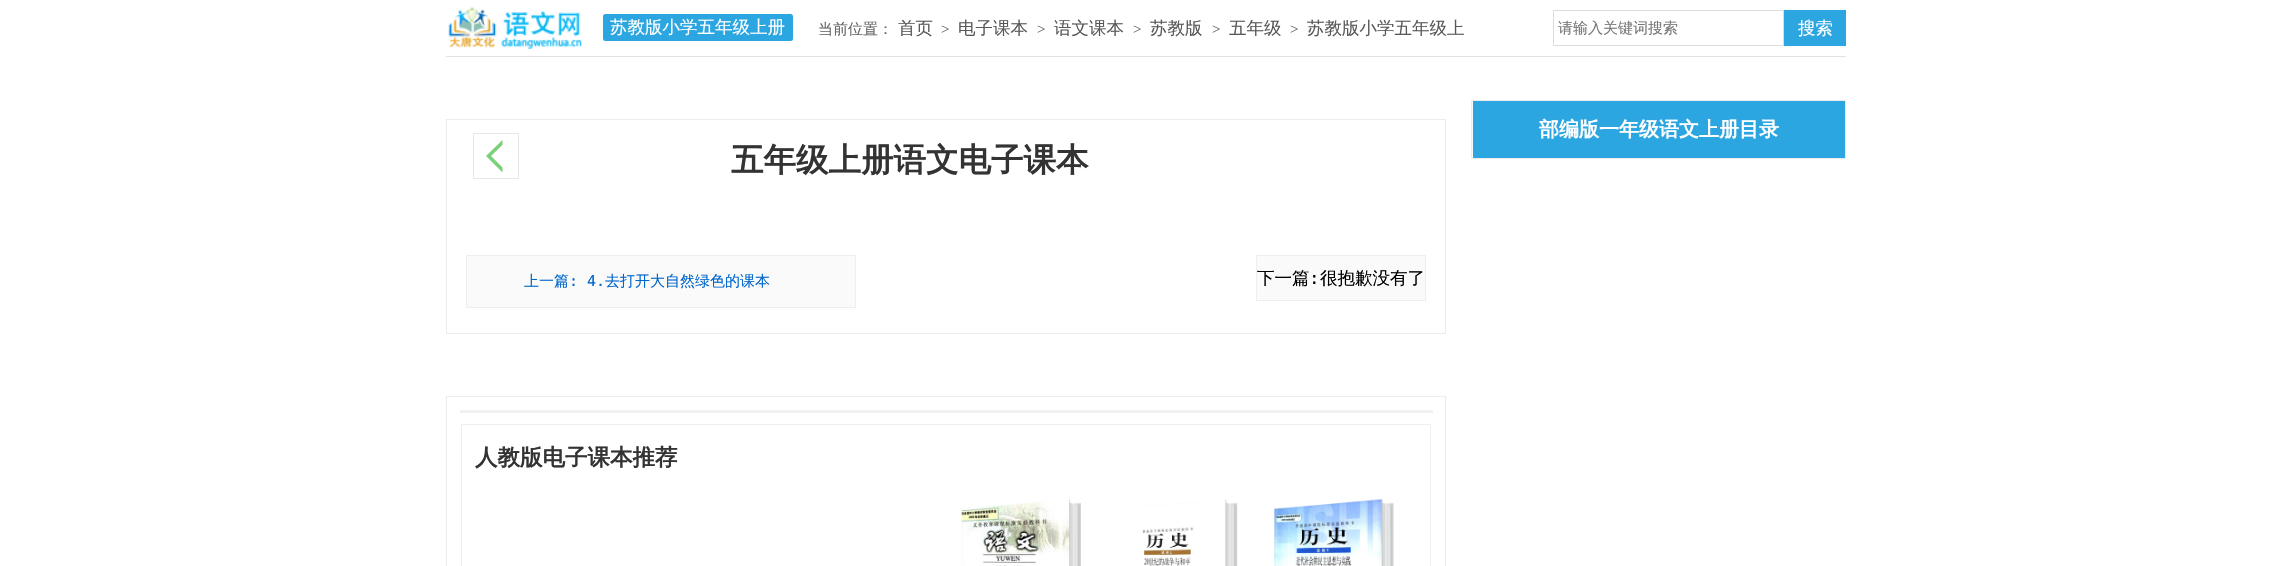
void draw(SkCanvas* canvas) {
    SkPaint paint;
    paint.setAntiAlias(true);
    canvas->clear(0xFFFFFFFF);
    paint.setColor(0xFFE2E2E2);
    canvas->drawRect(SkRect::MakeXYWH(446, 56, 1400, 1), paint);
    canvas->drawImageRect(SkImages::DeferredFromEncodedData(SkData::MakeFromFileName("img1.png")), SkRect::MakeXYWH(448, 7, 134, 42), SkSamplingOptions());
    paint.setColor(0xFF2CA6E0);
    canvas->drawRoundRect(SkRect::MakeXYWH(603, 14, 190, 27), 2.5f, 2.5f, paint);
    SkFont font1(fontMgr->matchFamilyStyle("WenQuanYi Zen Hei", SkFontStyle(500, SkFontStyle::kNormal_Width, SkFontStyle::kUpright_Slant)), 17.5f);
    font1.setSubpixel(true);
    paint.setColor(0xFFFFFFFF);
    canvas->drawString("苏教版小学五年级上册", 610, 33, font1, paint);
    SkFont font2(fontMgr->matchFamilyStyle("WenQuanYi Zen Hei", SkFontStyle(500, SkFontStyle::kNormal_Width, SkFontStyle::kUpright_Slant)), 15);
    font2.setSubpixel(true);
    paint.setColor(0xFF666666);
    canvas->drawString("当前位置：", 818, 34, font2, paint);
    paint.setColor(0xFF585858);
    canvas->drawString("首页", 898, 34, font1, paint);
    SkFont font3(fontMgr->matchFamilyStyle("Liberation Serif", SkFontStyle::Normal()), 15);
    font3.setSubpixel(true);
    paint.setColor(0xFF666666);
    canvas->drawString(">", 941, 34, font3, paint);
    paint.setColor(0xFF585858);
    canvas->drawString("电子课本", 958, 34, font1, paint);
    paint.setColor(0xFF666666);
    canvas->drawString(">", 1037, 34, font3, paint);
    paint.setColor(0xFF585858);
    canvas->drawString("语文课本", 1054, 34, font1, paint);
    paint.setColor(0xFF666666);
    canvas->drawString(">", 1133, 34, font3, paint);
    paint.setColor(0xFF585858);
    canvas->drawString("苏教版", 1150, 34, font1, paint);
    paint.setColor(0xFF666666);
    canvas->drawString(">", 1212, 34, font3, paint);
    paint.setColor(0xFF585858);
    canvas->drawString("五年级", 1229, 34, font1, paint);
    paint.setColor(0xFF666666);
    canvas->drawString(">", 1290, 34, font3, paint);
    paint.setColor(0xFF585858);
    canvas->drawString("苏教版小学五年级上", 1307, 34, font1, paint);
    paint.setStyle(SkPaint::kStroke_Style);
    paint.setStrokeWidth(1);
    paint.setColor(0xFFDDDDDD);
    canvas->drawRect(SkRect::MakeXYWH(1553.5f, 10.5f, 230, 35), paint);
    paint.setStyle(SkPaint::kFill_Style);
    paint.setColor(0xFF757575);
    canvas->drawString("请输入关键词搜索", 1558, 33, font2, paint);
    paint.setColor(0xFF2CA6E0);
    canvas->drawRect(SkRect::MakeXYWH(1784, 10, 62, 36), paint);
    paint.setColor(0xFFFFFFFF);
    canvas->drawString("搜索", 1798, 34, font1, paint);
    paint.setColor(0xFFF9F9F9);
    canvas->drawRect(SkRect::MakeXYWH(1472, 101, 1, 57), paint);
    paint.setStyle(SkPaint::kStroke_Style);
    paint.setColor(0xFFECECEC);
    canvas->drawRect(SkRect::MakeXYWH(1471.5f, 100.5f, 374, 58), paint);
    paint.setStyle(SkPaint::kFill_Style);
    paint.setColor(0xFF2CA6E0);
    canvas->drawRect(SkRect::MakeXYWH(1473, 101, 372, 57), paint);
    SkFont font4(fontMgr->matchFamilyStyle("WenQuanYi Zen Hei", SkFontStyle::Bold()), 20);
    font4.setSubpixel(true);
    paint.setColor(0xFFFFFFFF);
    canvas->drawString("部编版一年级语文上册目录", 1539, 136, font4, paint);
    paint.setStyle(SkPaint::kStroke_Style);
    paint.setColor(0xFFECECEC);
    canvas->drawRect(SkRect::MakeXYWH(446.5f, 119.5f, 999, 214), paint);
    paint.setColor(0xFFE8E8E8);
    canvas->drawRect(SkRect::MakeXYWH(473.5f, 133.5f, 45, 45), paint);
    paint.setStyle(SkPaint::kFill_Style);
    paint.setColor(0xFF7AD177);
    canvas->drawPath(SkPathBuilder().moveTo(502.5f, 140).lineTo(502.5f, 172.5f).lineTo(486, 156).close().detach(), paint);
    paint.setColor(0xFFFFFFFF);
    canvas->drawPath(SkPathBuilder().moveTo(507.5f, 140).lineTo(507.5f, 172.5f).lineTo(491, 156).close().detach(), paint);
    SkFont font5(fontMgr->matchFamilyStyle("WenQuanYi Zen Hei", SkFontStyle::Bold()), 32.5f);
    font5.setSubpixel(true);
    paint.setColor(0xFF333333);
    canvas->drawString("五年级上册语文电子课本", 731, 171, font5, paint);
    paint.setColor(0xFFFAFAFA);
    canvas->drawRect(SkRect::MakeXYWH(466.5f, 255.5f, 389, 52), paint);
    paint.setStyle(SkPaint::kStroke_Style);
    paint.setColor(0xFFEEEEEE);
    canvas->drawRect(SkRect::MakeXYWH(466.5f, 255.5f, 389, 52), paint);
    paint.setStyle(SkPaint::kFill_Style);
    paint.setColor(0xFF0066CC);
    canvas->drawString("上一篇", 524, 286, font2, paint);
    SkFont font6(fontMgr->matchFamilyStyle("DejaVu Sans Mono", SkFontStyle::Normal()), 15);
    font6.setSubpixel(true);
    canvas->drawString(": 4.", 569, 286, font6, paint);
    canvas->drawString("去打开大自然绿色的课本", 605, 286, font2, paint);
    paint.setColor(0xFFFAFAFA);
    canvas->drawRect(SkRect::MakeXYWH(1256.5f, 255.5f, 169, 45), paint);
    paint.setStyle(SkPaint::kStroke_Style);
    paint.setColor(0xFFEEEEEE);
    canvas->drawRect(SkRect::MakeXYWH(1256.5f, 255.5f, 169, 45), paint);
    paint.setStyle(SkPaint::kFill_Style);
    paint.setColor(0xFF000000);
    canvas->drawString("下一篇", 1257, 284, font1, paint);
    SkFont font7(fontMgr->matchFamilyStyle("DejaVu Sans Mono", SkFontStyle::Normal()), 17.5f);
    font7.setSubpixel(true);
    canvas->drawString(":", 1309, 284, font7, paint);
    canvas->drawString("很抱歉没有了", 1320, 284, font1, paint);
    paint.setStyle(SkPaint::kStroke_Style);
    paint.setColor(0xFFECECEC);
    canvas->drawRect(SkRect::MakeXYWH(446.5f, 396.5f, 999, 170), paint);
    paint.setStyle(SkPaint::kFill_Style);
    paint.setColor(0xFFF1F1F1);
    canvas->drawRect(SkRect::MakeXYWH(460, 410, 973, 3), paint);
    paint.setStyle(SkPaint::kStroke_Style);
    paint.setColor(0xFFEFEFEF);
    canvas->drawRect(SkRect::MakeXYWH(461.5f, 424.5f, 969, 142), paint);
    SkFont font8(fontMgr->matchFamilyStyle("WenQuanYi Zen Hei", SkFontStyle::Bold()), 22.5f);
    font8.setSubpixel(true);
    paint.setStyle(SkPaint::kFill_Style);
    paint.setColor(0xFF333333);
    canvas->drawString("人教版电子课本推荐", 475, 465, font8, paint);
    canvas->drawImageRect(SkImages::DeferredFromEncodedData(SkData::MakeFromFileName("img2.png")), SkRect::MakeXYWH(961, 499, 120, 67), SkSamplingOptions());
    canvas->drawImageRect(SkImages::DeferredFromEncodedData(SkData::MakeFromFileName("img3.png")), SkRect::MakeXYWH(1142, 499, 96, 67), SkSamplingOptions());
    canvas->drawImageRect(SkImages::DeferredFromEncodedData(SkData::MakeFromFileName("img4.png")), SkRect::MakeXYWH(1274, 498, 120, 68), SkSamplingOptions());
}
